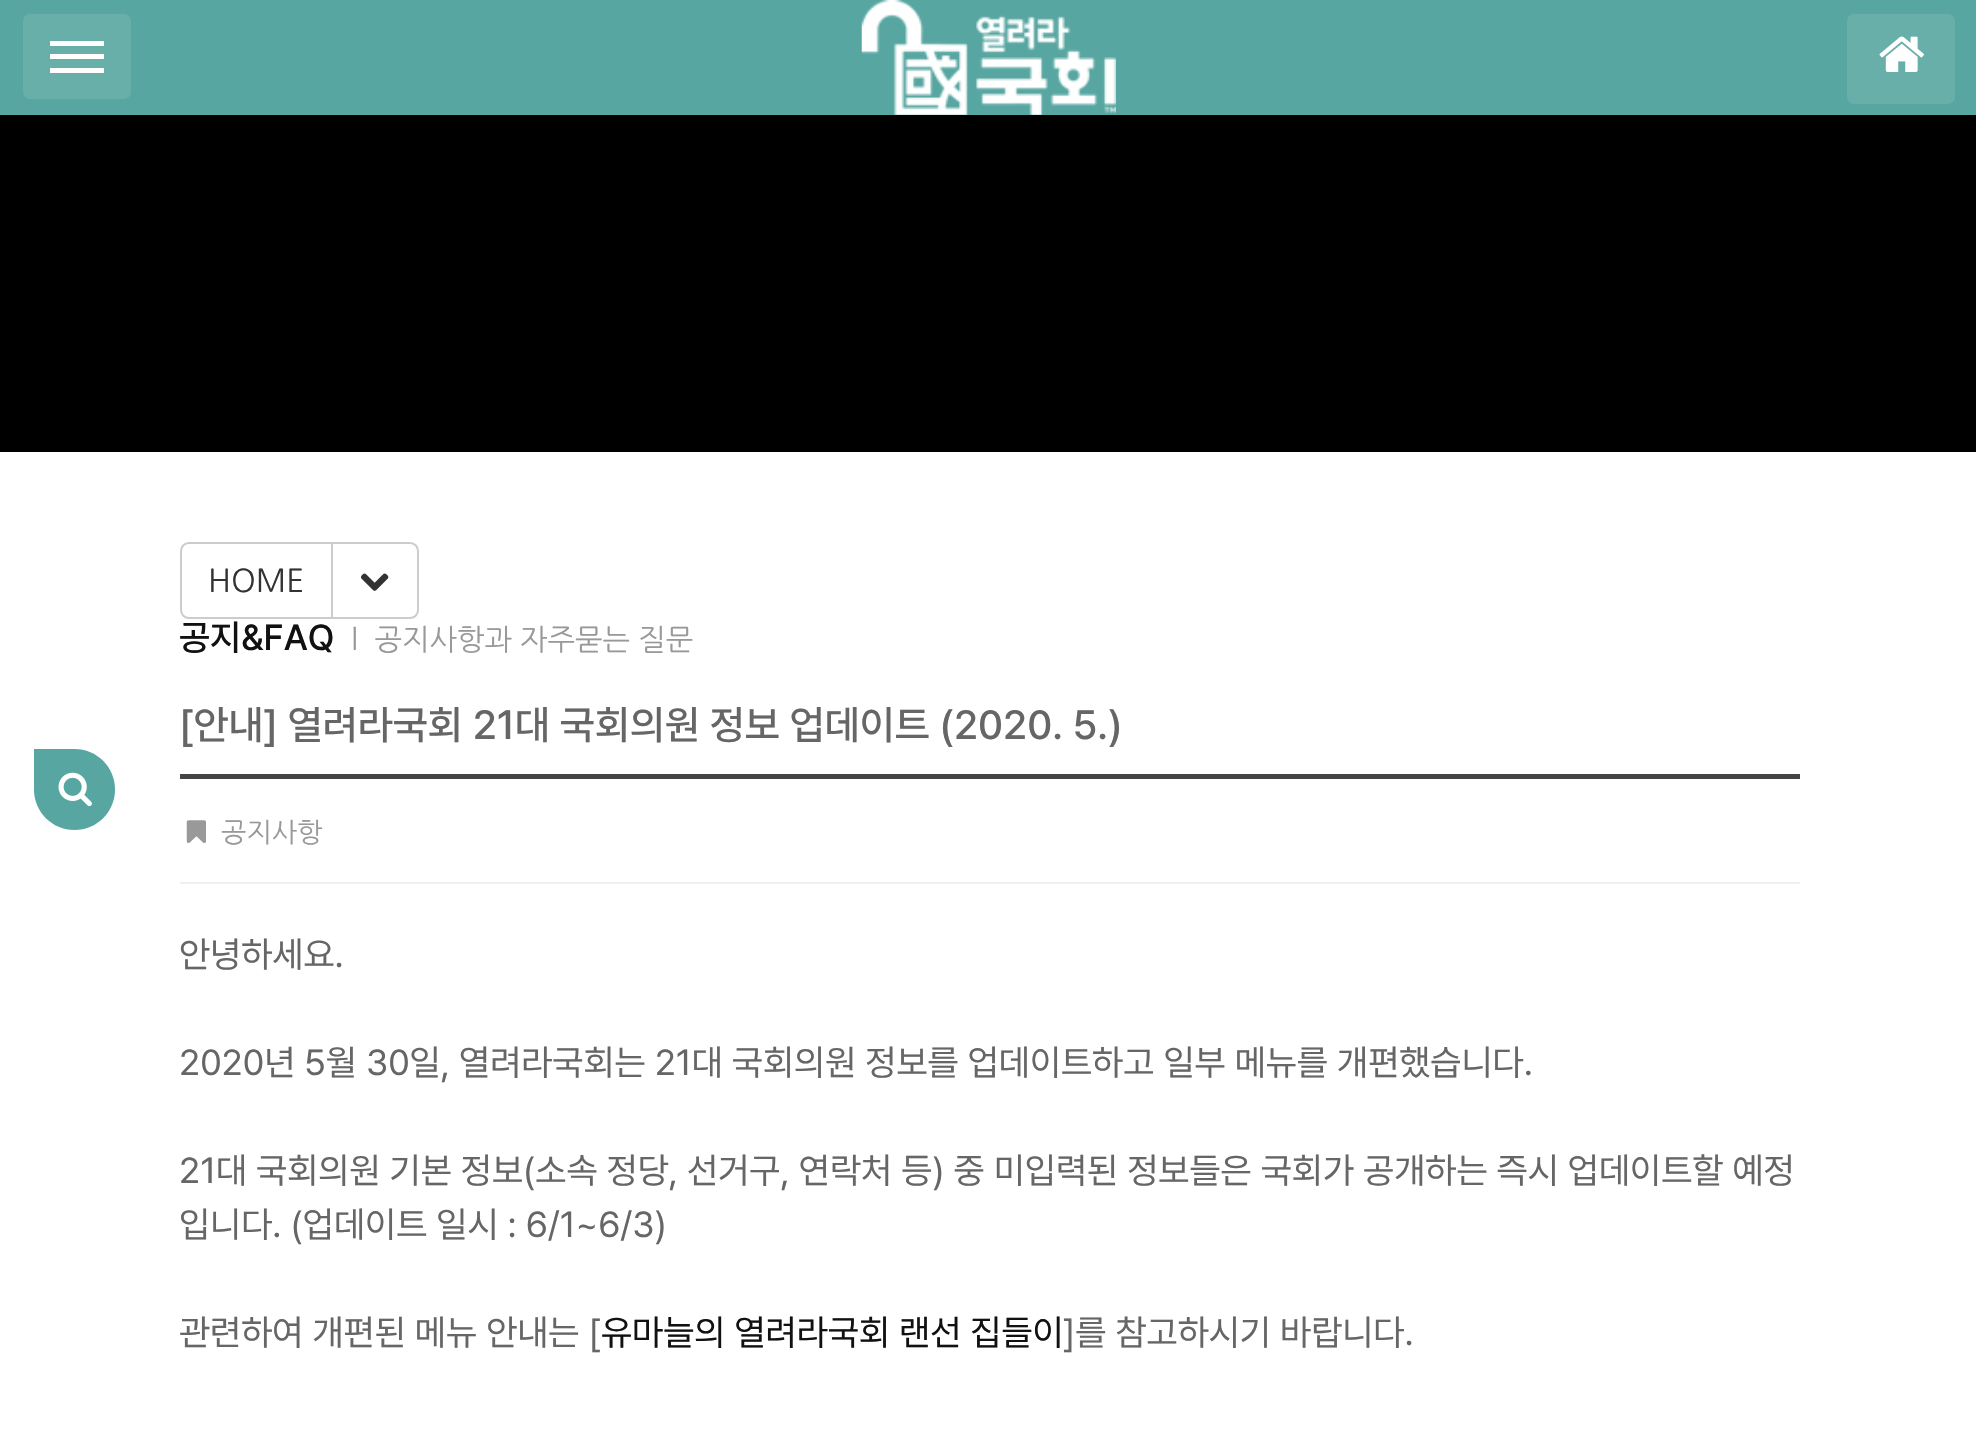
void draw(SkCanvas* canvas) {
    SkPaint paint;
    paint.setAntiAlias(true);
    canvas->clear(0xFFFFFFFF);
    paint.setColor(0xFF57A6A1);
    canvas->drawRect(SkRect::MakeXYWH(0, 0, 1976, 115), paint);
    paint.setColor(0xFF68AFAA);
    canvas->drawRoundRect(SkRect::MakeXYWH(23, 14, 108, 85), 7, 7, paint);
    paint.setColor(0xFFFFFFFF);
    canvas->drawRect(SkRect::MakeXYWH(50, 41, 54, 5), paint);
    canvas->drawRect(SkRect::MakeXYWH(50, 54, 54, 5), paint);
    canvas->drawRect(SkRect::MakeXYWH(50, 68, 54, 5), paint);
    canvas->drawImageRect(SkImages::DeferredFromEncodedData(SkData::MakeFromFileName("img1.png")), SkRect::MakeXYWH(861, 0, 255, 115), SkSamplingOptions());
    paint.setColor(0xFF68AFAA);
    canvas->drawRoundRect(SkRect::MakeXYWH(1847, 14, 108, 90), 7, 7, paint);
    canvas->drawImageRect(SkImages::DeferredFromEncodedData(SkData::MakeFromFileName("img2.png")), SkRect::MakeXYWH(1879, 36, 45, 36), SkSamplingOptions());
    paint.setColor(0xFF57A6A1);
    canvas->drawPath(SkPathBuilder().moveTo(34, 749).lineTo(74.5f, 749).cubicTo(97, 749, 115, 767, 115, 789.5f).cubicTo(115, 812, 97, 830, 74.5f, 830).cubicTo(52, 830, 34, 812, 34, 789.5f).close().detach(), paint);
    canvas->drawImageRect(SkImages::DeferredFromEncodedData(SkData::MakeFromFileName("img3.png")), SkRect::MakeXYWH(58, 772, 34, 35), SkSamplingOptions());
    paint.setColor(0xFF000000);
    canvas->drawRect(SkRect::MakeXYWH(0, 115, 1976, 337), paint);
    paint.setStyle(SkPaint::kStroke_Style);
    paint.setStrokeWidth(2);
    paint.setColor(0xFFCCCCCC);
    canvas->drawPath(SkPathBuilder().moveTo(189, 543).lineTo(332, 543).lineTo(332, 618).lineTo(189, 618).cubicTo(184.5f, 618, 181, 614.5f, 181, 610).lineTo(181, 551).cubicTo(181, 546.5f, 184.5f, 543, 189, 543).close().detach(), paint);
    SkFont font1(fontMgr->matchFamilyStyle("NanumGothic", SkFontStyle::Normal()), 31.5f);
    font1.setSubpixel(true);
    paint.setStyle(SkPaint::kFill_Style);
    paint.setColor(0xFF333333);
    canvas->drawString("HOME", 208, 592, font1, paint);
    paint.setColor(0xFFFFFFFF);
    canvas->drawPath(SkPathBuilder().moveTo(332, 543).lineTo(410, 543).cubicTo(414.5f, 543, 418, 546.5f, 418, 551).lineTo(418, 610).cubicTo(418, 614.5f, 414.5f, 618, 410, 618).lineTo(332, 618).close().detach(), paint);
    paint.setStyle(SkPaint::kStroke_Style);
    paint.setColor(0xFFCCCCCC);
    canvas->drawPath(SkPathBuilder().moveTo(332, 543).lineTo(410, 543).cubicTo(414.5f, 543, 418, 546.5f, 418, 551).lineTo(418, 610).cubicTo(418, 614.5f, 414.5f, 618, 410, 618).lineTo(332, 618).close().detach(), paint);
    canvas->drawImageRect(SkImages::DeferredFromEncodedData(SkData::MakeFromFileName("img4.png")), SkRect::MakeXYWH(361, 573, 28, 18), SkSamplingOptions());
    SkFont font2(fontMgr->matchFamilyStyle("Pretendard", SkFontStyle(500, SkFontStyle::kNormal_Width, SkFontStyle::kUpright_Slant)), 36);
    font2.setSubpixel(true);
    paint.setStyle(SkPaint::kFill_Style);
    paint.setColor(0xFF111111);
    canvas->drawString("공지&FAQ", 179, 650, font2, paint);
    SkFont font3(fontMgr->matchFamilyStyle("NanumGothic", SkFontStyle::Normal()), 29.25f);
    font3.setSubpixel(true);
    paint.setColor(0xFF999999);
    canvas->drawString("l  공지사항과 자주묻는 질문", 351, 650, font3, paint);
    paint.setColor(0xFF444547);
    canvas->drawRect(SkRect::MakeXYWH(180, 774, 1620, 5), paint);
    SkFont font4(fontMgr->matchFamilyStyle("Pretendard", SkFontStyle(500, SkFontStyle::kNormal_Width, SkFontStyle::kUpright_Slant)), 40.5f);
    font4.setSubpixel(true);
    paint.setColor(0xFF666666);
    canvas->drawString("[안내] 열려라국회 21대 국회의원 정보 업데이트 (2020. 5.)", 179, 739, font4, paint);
    paint.setColor(0xFFEFEFEF);
    canvas->drawRect(SkRect::MakeXYWH(180, 882, 1620, 2), paint);
    canvas->drawImageRect(SkImages::DeferredFromEncodedData(SkData::MakeFromFileName("img5.png")), SkRect::MakeXYWH(186, 820, 20, 23), SkSamplingOptions());
    SkFont font5(fontMgr->matchFamilyStyle("NanumGothic", SkFontStyle::Normal()), 27);
    font5.setSubpixel(true);
    paint.setColor(0xFF999999);
    canvas->drawString("공지사항", 221, 842, font5, paint);
    SkFont font6(fontMgr->matchFamilyStyle("Pretendard", SkFontStyle::Normal()), 36);
    font6.setSubpixel(true);
    paint.setColor(0xFF666666);
    canvas->drawString("안녕하세요.", 179, 967, font6, paint);
    canvas->drawString("2020년 5월 30일, 열려라국회는 21대 국회의원 정보를 업데이트하고 일부 메뉴를 개편했습니다.", 179, 1075, font6, paint);
    canvas->drawString("21대 국회의원 기본 정보(소속 정당, 선거구, 연락처 등) 중 미입력된 정보들은 국회가 공개하는 즉시 업데이트할 예정", 179, 1183, font6, paint);
    canvas->drawString("입니다. (업데이트 일시 : 6/1~6/3)", 179, 1237, font6, paint);
    canvas->drawString("관련하여 개편된 메뉴 안내는 [", 179, 1345, font6, paint);
    paint.setColor(0xFF111111);
    canvas->drawString("유마늘의 열려라국회 랜선 집들이", 601, 1345, font6, paint);
    paint.setColor(0xFF666666);
    canvas->drawString("]를 참고하시기 바랍니다.", 1063, 1345, font6, paint);
}
